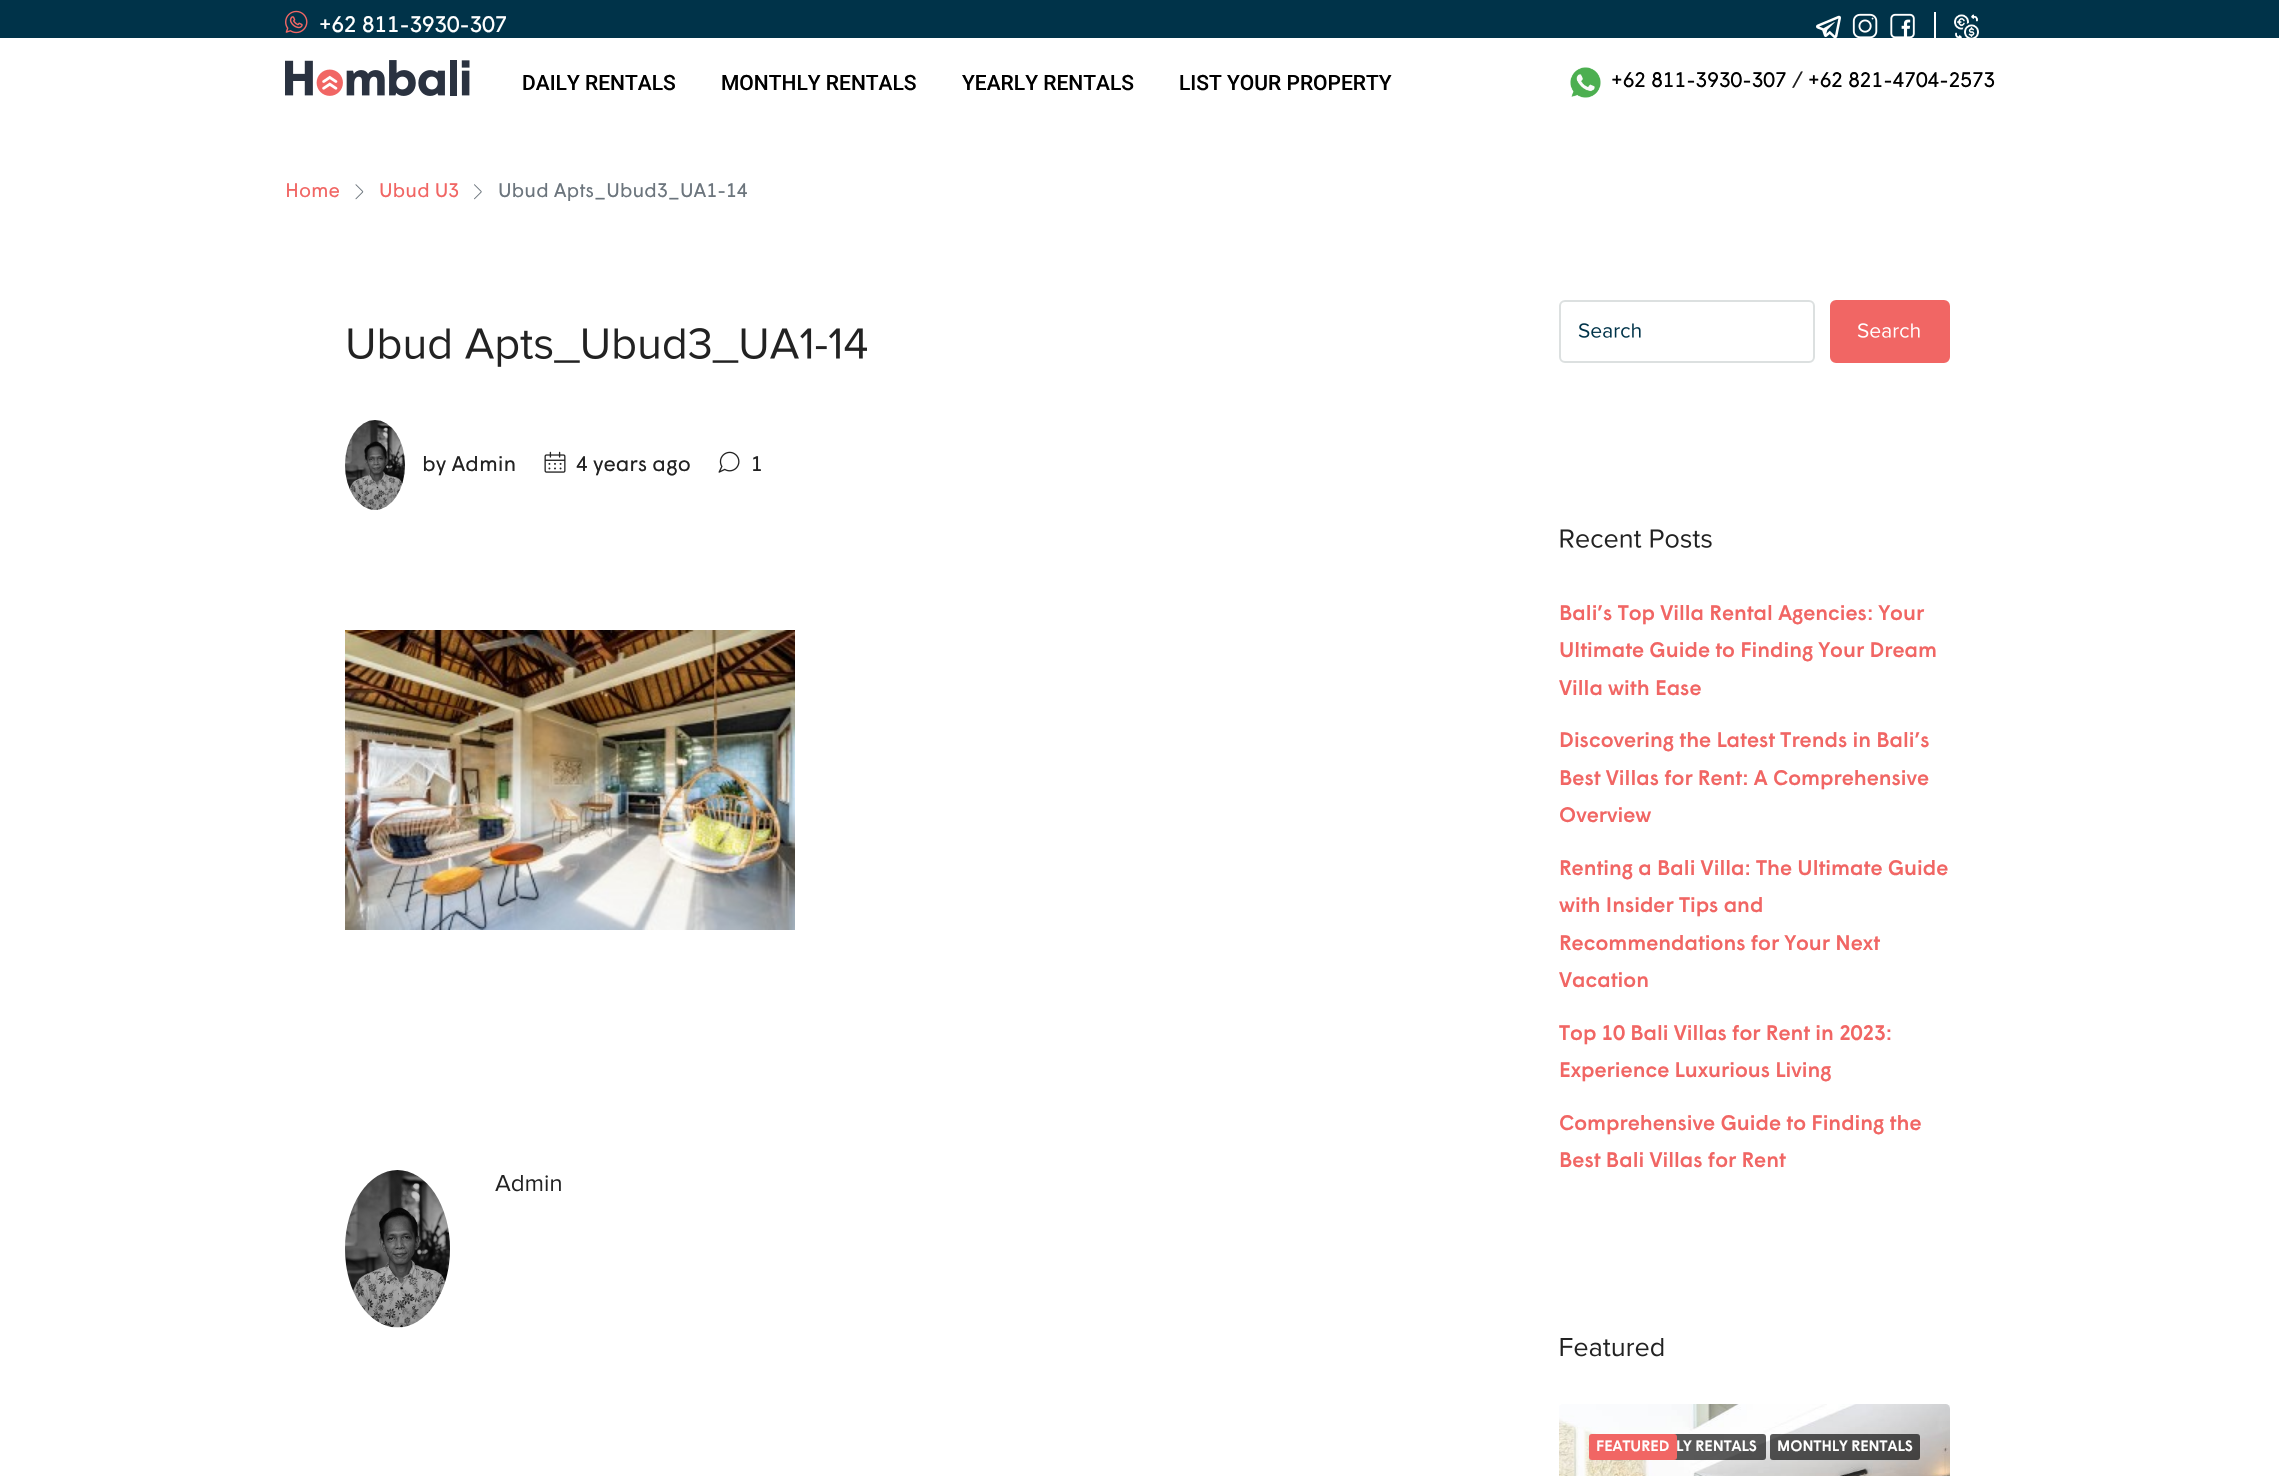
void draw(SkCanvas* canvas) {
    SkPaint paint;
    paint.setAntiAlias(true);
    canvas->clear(0xFFFFFFFF);
    paint.setColor(0xFF003349);
    canvas->drawRect(SkRect::MakeXYWH(0, 0, 2279, 38), paint);
    canvas->drawImageRect(SkImages::DeferredFromEncodedData(SkData::MakeFromFileName("img1.png")), SkRect::MakeXYWH(285, 10, 23, 24), SkSamplingOptions());
    SkFont font1(fontMgr->matchFamilyStyle("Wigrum", SkFontStyle::Normal()), 22.5f);
    font1.setSubpixel(true);
    paint.setColor(0xFFFFFFFF);
    canvas->drawString("+62 811-3930-307", 319, 32, font1, paint);
    canvas->drawImageRect(SkImages::DeferredFromEncodedData(SkData::MakeFromFileName("img2.png")), SkRect::MakeXYWH(1816, 15, 25, 23), SkSamplingOptions());
    canvas->drawImageRect(SkImages::DeferredFromEncodedData(SkData::MakeFromFileName("img3.png")), SkRect::MakeXYWH(1852, 13, 26, 25), SkSamplingOptions());
    canvas->drawImageRect(SkImages::DeferredFromEncodedData(SkData::MakeFromFileName("img4.png")), SkRect::MakeXYWH(1890, 13, 25, 25), SkSamplingOptions());
    canvas->drawRect(SkRect::MakeXYWH(1934, 12, 2, 30), paint);
    canvas->drawImageRect(SkImages::DeferredFromEncodedData(SkData::MakeFromFileName("img5.png")), SkRect::MakeXYWH(1954, 14, 25, 24), SkSamplingOptions());
    canvas->drawImageRect(SkImages::DeferredFromEncodedData(SkData::MakeFromFileName("img6.png")), SkRect::MakeXYWH(285, 60, 185, 36), SkSamplingOptions());
    SkFont font2(fontMgr->matchFamilyStyle("Roboto", SkFontStyle(500, SkFontStyle::kNormal_Width, SkFontStyle::kUpright_Slant)), 21);
    font2.setSubpixel(true);
    paint.setColor(0xFF000000);
    canvas->drawString("DAILY RENTALS", 522, 90, font2, paint);
    canvas->drawString("MONTHLY RENTALS", 721, 90, font2, paint);
    canvas->drawString("YEARLY RENTALS", 962, 90, font2, paint);
    canvas->drawString("LIST YOUR PROPERTY", 1179, 90, font2, paint);
    canvas->drawImageRect(SkImages::DeferredFromEncodedData(SkData::MakeFromFileName("img7.png")), SkRect::MakeXYWH(1570, 67, 31, 31), SkSamplingOptions());
    SkFont font3(fontMgr->matchFamilyStyle("Wigrum", SkFontStyle::Normal()), 21);
    font3.setSubpixel(true);
    canvas->drawString("+62 811-3930-307", 1611, 87, font3, paint);
    paint.setColor(0xFF222222);
    canvas->drawString("/", 1792, 87, font3, paint);
    paint.setColor(0xFF000000);
    canvas->drawString("+62 821-4704-2573", 1808, 87, font3, paint);
    SkFont font4(fontMgr->matchFamilyStyle("Wigrum", SkFontStyle::Normal()), 19.5f);
    font4.setSubpixel(true);
    paint.setColor(0xFFF16664);
    canvas->drawString("Home", 285, 197, font4, paint);
    canvas->drawImageRect(SkImages::DeferredFromEncodedData(SkData::MakeFromFileName("img8.png")), SkRect::MakeXYWH(355, 184, 9, 16), SkSamplingOptions());
    canvas->drawString("Ubud U3", 379, 197, font4, paint);
    canvas->drawImageRect(SkImages::DeferredFromEncodedData(SkData::MakeFromFileName("img9.png")), SkRect::MakeXYWH(474, 184, 8, 16), SkSamplingOptions());
    paint.setColor(0xFF6C757D);
    canvas->drawString("Ubud Apts_Ubud3_UA1-14", 498, 197, font4, paint);
    canvas->drawImageRect(SkImages::DeferredFromEncodedData(SkData::MakeFromFileName("img10.png")), SkRect::MakeXYWH(348, 328, 519, 39), SkSamplingOptions());
    canvas->drawImageRect(SkImages::DeferredFromEncodedData(SkData::MakeFromFileName("img11.png")), SkRect::MakeXYWH(345, 420, 60, 90), SkSamplingOptions());
    paint.setColor(0xFF222222);
    canvas->drawString("by Admin", 422, 471, font3, paint);
    canvas->drawImageRect(SkImages::DeferredFromEncodedData(SkData::MakeFromFileName("img12.png")), SkRect::MakeXYWH(544, 451, 22, 22), SkSamplingOptions());
    canvas->drawString("4 years ago", 576, 471, font3, paint);
    canvas->drawImageRect(SkImages::DeferredFromEncodedData(SkData::MakeFromFileName("img13.png")), SkRect::MakeXYWH(718, 451, 22, 22), SkSamplingOptions());
    canvas->drawString("1", 751, 471, font3, paint);
    canvas->drawImageRect(SkImages::DeferredFromEncodedData(SkData::MakeFromFileName("img14.png")), SkRect::MakeXYWH(345, 630, 450, 300), SkSamplingOptions());
    canvas->drawImageRect(SkImages::DeferredFromEncodedData(SkData::MakeFromFileName("img15.png")), SkRect::MakeXYWH(345, 1170, 105, 158), SkSamplingOptions());
    canvas->drawImageRect(SkImages::DeferredFromEncodedData(SkData::MakeFromFileName("img16.png")), SkRect::MakeXYWH(495, 1175, 66, 17), SkSamplingOptions());
    paint.setStyle(SkPaint::kStroke_Style);
    paint.setStrokeWidth(2);
    paint.setColor(0xFFDCE0E0);
    canvas->drawRoundRect(SkRect::MakeXYWH(1560, 301, 254, 61), 5, 5, paint);
    canvas->drawImageRect(SkImages::DeferredFromEncodedData(SkData::MakeFromFileName("img17.png")), SkRect::MakeXYWH(1578, 323, 63, 15), SkSamplingOptions());
    paint.setStyle(SkPaint::kFill_Style);
    paint.setColor(0xFFF16664);
    canvas->drawRoundRect(SkRect::MakeXYWH(1831, 301, 118, 61), 5, 5, paint);
    paint.setStyle(SkPaint::kStroke_Style);
    canvas->drawRoundRect(SkRect::MakeXYWH(1831, 301, 118, 61), 5, 5, paint);
    canvas->drawImageRect(SkImages::DeferredFromEncodedData(SkData::MakeFromFileName("img18.png")), SkRect::MakeXYWH(1857, 323, 63, 15), SkSamplingOptions());
    canvas->drawImageRect(SkImages::DeferredFromEncodedData(SkData::MakeFromFileName("img19.png")), SkRect::MakeXYWH(1560, 529, 152, 19), SkSamplingOptions());
    SkFont font5(fontMgr->matchFamilyStyle("Wigrum", SkFontStyle(500, SkFontStyle::kNormal_Width, SkFontStyle::kUpright_Slant)), 21);
    font5.setSubpixel(true);
    paint.setStyle(SkPaint::kFill_Style);
    canvas->drawString("Bali’s Top Villa Rental Agencies: Your", 1559, 620, font5, paint);
    canvas->drawString("Ultimate Guide to Finding Your Dream", 1559, 657, font5, paint);
    canvas->drawString("Villa with Ease", 1559, 695, font5, paint);
    canvas->drawString("Discovering the Latest Trends in Bali’s", 1559, 747, font5, paint);
    canvas->drawString("Best Villas for Rent: A Comprehensive", 1559, 785, font5, paint);
    canvas->drawString("Overview", 1559, 822, font5, paint);
    canvas->drawString("Renting a Bali Villa: The Ultimate Guide", 1559, 875, font5, paint);
    canvas->drawString("with Insider Tips and", 1559, 912, font5, paint);
    canvas->drawString("Recommendations for Your Next", 1559, 950, font5, paint);
    canvas->drawString("Vacation", 1559, 987, font5, paint);
    canvas->drawString("Top 10 Bali Villas for Rent in 2023:", 1559, 1040, font5, paint);
    canvas->drawString("Experience Luxurious Living", 1559, 1077, font5, paint);
    canvas->drawString("Comprehensive Guide to Finding the", 1559, 1130, font5, paint);
    canvas->drawString("Best Bali Villas for Rent", 1559, 1167, font5, paint);
    canvas->drawImageRect(SkImages::DeferredFromEncodedData(SkData::MakeFromFileName("img20.png")), SkRect::MakeXYWH(1560, 1338, 104, 19), SkSamplingOptions());
    canvas->drawImageRect(SkImages::DeferredFromEncodedData(SkData::MakeFromFileName("img21.png")), SkRect::MakeXYWH(1559, 1404, 391, 72), SkSamplingOptions());
    paint.setColor(0xA6000000);
    canvas->drawRoundRect(SkRect::MakeXYWH(1644, 1434, 122, 26), 3, 3, paint);
    paint.setColor(0xFFF16664);
    canvas->drawRoundRect(SkRect::MakeXYWH(1589, 1434, 88, 26), 3, 3, paint);
    SkFont font6(fontMgr->matchFamilyStyle("Wigrum", SkFontStyle(500, SkFontStyle::kNormal_Width, SkFontStyle::kUpright_Slant)), 15);
    font6.setSubpixel(true);
    paint.setColor(0xFFFFFFFF);
    canvas->drawString("FEATURED", 1596, 1451, font6, paint);
    canvas->drawString("LY RENTALS", 1676, 1451, font6, paint);
    paint.setColor(0xA6000000);
    canvas->drawRoundRect(SkRect::MakeXYWH(1770, 1434, 150, 26), 3, 3, paint);
    paint.setColor(0xFFFFFFFF);
    canvas->drawString("MONTHLY RENTALS", 1777, 1451, font6, paint);
}
